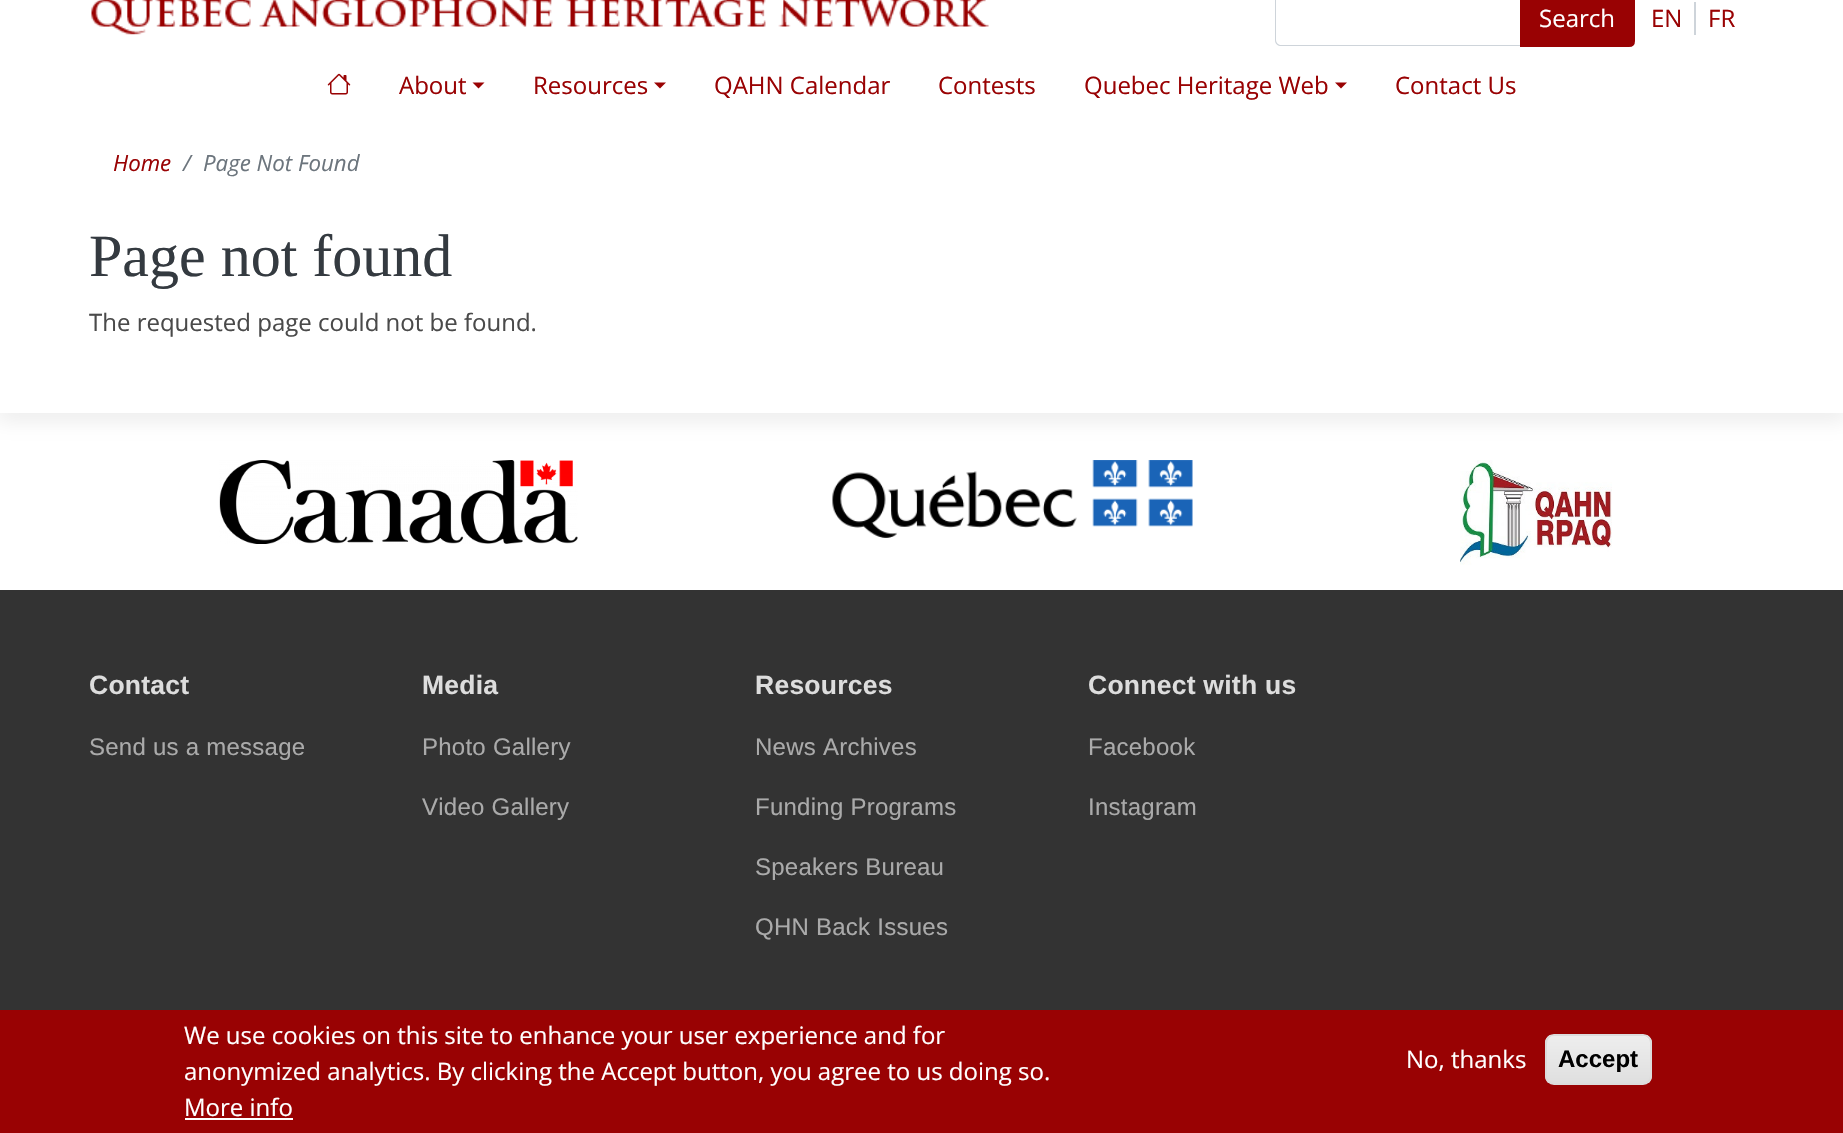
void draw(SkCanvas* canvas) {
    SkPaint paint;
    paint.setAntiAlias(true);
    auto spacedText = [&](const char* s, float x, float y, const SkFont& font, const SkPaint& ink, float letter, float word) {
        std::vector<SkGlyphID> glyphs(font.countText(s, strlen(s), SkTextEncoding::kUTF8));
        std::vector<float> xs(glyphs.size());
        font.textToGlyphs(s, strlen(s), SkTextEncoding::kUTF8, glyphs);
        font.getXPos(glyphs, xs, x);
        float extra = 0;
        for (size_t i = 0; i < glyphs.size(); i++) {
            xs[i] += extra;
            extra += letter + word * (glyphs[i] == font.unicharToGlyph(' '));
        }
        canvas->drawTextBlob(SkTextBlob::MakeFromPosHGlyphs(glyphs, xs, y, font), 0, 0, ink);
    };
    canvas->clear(0xFFFFFFFF);
    canvas->drawImageRect(SkImages::DeferredFromEncodedData(SkData::MakeFromFileName("img1.png")), SkRect::MakeXYWH(91, 0, 898, 35), SkSamplingOptions());
    paint.setColor(0xFFCED4DA);
    canvas->drawPath(SkPathBuilder(SkPathFillType::kEvenOdd).moveTo(1281, -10).lineTo(1520, -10).lineTo(1520, 46).lineTo(1281, 46).cubicTo(1278, 46, 1275, 44, 1275, 40).lineTo(1275, -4).cubicTo(1275, -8, 1278, -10, 1281, -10).close().moveTo(1281, -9).lineTo(1520, -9).lineTo(1520, 45).lineTo(1281, 45).cubicTo(1279, 45, 1276, 43, 1276, 40).lineTo(1276, -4).cubicTo(1276, -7, 1279, -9, 1281, -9).close().detach(), paint);
    paint.setColor(0xFF990203);
    canvas->drawPath(SkPathBuilder().moveTo(1521, -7).lineTo(1629, -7).cubicTo(1632, -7, 1634, -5, 1634, -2).lineTo(1634, 41).cubicTo(1634, 44, 1632, 46, 1629, 46).lineTo(1521, 46).close().detach(), paint);
    paint.setStyle(SkPaint::kStroke_Style);
    paint.setStrokeWidth(2);
    canvas->drawPath(SkPathBuilder().moveTo(1521, -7).lineTo(1629, -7).cubicTo(1632, -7, 1634, -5, 1634, -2).lineTo(1634, 41).cubicTo(1634, 44, 1632, 46, 1629, 46).lineTo(1521, 46).close().detach(), paint);
    SkFont font1(fontMgr->matchFamilyStyle("Open Sans", SkFontStyle::Normal()), 24);
    font1.setSubpixel(true);
    paint.setStyle(SkPaint::kFill_Style);
    paint.setColor(0xFFFFFFFF);
    canvas->drawString("Search", 1539, 27, font1, paint);
    paint.setColor(0xFF990203);
    canvas->drawString("EN", 1651, 27, font1, paint);
    paint.setColor(0xFFCED4DA);
    canvas->drawRect(SkRect::MakeXYWH(1694, 2, 2, 33), paint);
    paint.setColor(0xFF990203);
    canvas->drawString("FR", 1708, 27, font1, paint);
    canvas->drawImageRect(SkImages::DeferredFromEncodedData(SkData::MakeFromFileName("img2.png")), SkRect::MakeXYWH(327, 73, 24, 22), SkSamplingOptions());
    canvas->drawString("About", 399, 94, font1, paint);
    canvas->drawPath(SkPathBuilder().moveTo(472.5f, 82.5f).lineTo(484.5f, 82.5f).lineTo(478.5f, 88.5f).close().detach(), paint);
    canvas->drawString("Resources", 533, 94, font1, paint);
    canvas->drawPath(SkPathBuilder().moveTo(654, 82.5f).lineTo(666, 82.5f).lineTo(660, 88.5f).close().detach(), paint);
    canvas->drawString("QAHN Calendar", 714, 94, font1, paint);
    canvas->drawString("Contests", 938, 94, font1, paint);
    canvas->drawString("Quebec Heritage Web", 1084, 94, font1, paint);
    canvas->drawPath(SkPathBuilder().moveTo(1335, 82.5f).lineTo(1347, 82.5f).lineTo(1341, 88.5f).close().detach(), paint);
    canvas->drawString("Contact Us", 1395, 94, font1, paint);
    SkFont font2(fontMgr->matchFamilyStyle("Open Sans", SkFontStyle::Italic()), 22.25f);
    font2.setSubpixel(true);
    canvas->drawString("Home", 113, 171, font2, paint);
    paint.setColor(0xFF6C757D);
    canvas->drawString("/", 183, 171, font2, paint);
    canvas->drawString("Page Not Found", 203, 171, font2, paint);
    SkFont font3(fontMgr->matchFamilyStyle("Liberation Serif", SkFontStyle::Normal()), 60);
    font3.setSubpixel(true);
    paint.setColor(0xFF343A40);
    canvas->drawString("Page not found", 89, 276, font3, paint);
    paint.setColor(0xFF4A4A4A);
    canvas->drawString("The requested page could not be found.", 89, 331, font1, paint);
    canvas->save();
    canvas->clipRect(SkRect::MakeXYWH(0, 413, 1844, 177));
    paint.setColor(0x40000000);
    paint.setMaskFilter(SkMaskFilter::MakeBlur(kNormal_SkBlurStyle, 11));
    canvas->drawRect(SkRect::MakeXYWH(-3, 408, 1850, 6), paint);
    paint.setMaskFilter(nullptr);
    canvas->restore();
    canvas->drawImageRect(SkImages::DeferredFromEncodedData(SkData::MakeFromFileName("img3.png")), SkRect::MakeXYWH(219, 460, 359, 84), SkSamplingOptions());
    canvas->drawImageRect(SkImages::DeferredFromEncodedData(SkData::MakeFromFileName("img4.png")), SkRect::MakeXYWH(832, 460, 361, 78), SkSamplingOptions());
    canvas->drawImageRect(SkImages::DeferredFromEncodedData(SkData::MakeFromFileName("img5.png")), SkRect::MakeXYWH(1460, 460, 152, 105), SkSamplingOptions());
    paint.setColor(0xFF333333);
    canvas->drawRect(SkRect::MakeXYWH(0, 590, 1843, 420), paint);
    SkFont font4(fontMgr->matchFamilyStyle("Liberation Sans", SkFontStyle::Bold()), 26.5f);
    font4.setSubpixel(true);
    paint.setColor(0xFFDDDDDD);
    spacedText("Contact", 89, 694, font4, paint, 0.25f, 0);
    SkFont font5(fontMgr->matchFamilyStyle("Liberation Sans", SkFontStyle::Normal()), 24);
    font5.setSubpixel(true);
    paint.setColor(0xFFAAAAAA);
    spacedText("Send us a message", 89, 755, font5, paint, 0.25f, 0);
    paint.setColor(0xFFDDDDDD);
    spacedText("Media", 422, 694, font4, paint, 0.25f, 0);
    paint.setColor(0xFFAAAAAA);
    spacedText("Photo Gallery", 422, 755, font5, paint, 0.25f, 0);
    spacedText("Video Gallery", 422, 815, font5, paint, 0.25f, 0);
    paint.setColor(0xFFDDDDDD);
    spacedText("Resources", 755, 694, font4, paint, 0.25f, 0);
    paint.setColor(0xFFAAAAAA);
    spacedText("News Archives", 755, 755, font5, paint, 0.25f, 0);
    spacedText("Funding Programs", 755, 815, font5, paint, 0.25f, 0);
    spacedText("Speakers Bureau", 755, 875, font5, paint, 0.25f, 0);
    spacedText("QHN Back Issues", 755, 935, font5, paint, 0.25f, 0);
    paint.setColor(0xFFDDDDDD);
    spacedText("Connect with us", 1088, 694, font4, paint, 0.25f, 0);
    paint.setColor(0xFFAAAAAA);
    spacedText("Facebook", 1088, 755, font5, paint, 0.25f, 0);
    spacedText("Instagram", 1088, 815, font5, paint, 0.25f, 0);
    paint.setColor(0xFF990203);
    canvas->drawRect(SkRect::MakeXYWH(0, 1010, 1843, 123), paint);
    paint.setColor(0xFFFFFFFF);
    canvas->drawString("We use cookies on this site to enhance your user experience and for", 184, 1044, font1, paint);
    canvas->drawString("anonymized analytics. By clicking the Accept button, you agree to us doing so.", 184, 1080, font1, paint);
    canvas->drawString("More info", 184, 1116, font1, paint);
    canvas->drawRect(SkRect::MakeXYWH(185, 1118, 108, 2), paint);
    canvas->drawString("No, thanks", 1406, 1068, font1, paint);
    canvas->save();
    canvas->clipPath(SkPathBuilder().moveTo(1554, 1034).lineTo(1643, 1034).cubicTo(1648, 1034, 1652, 1038, 1652, 1043).lineTo(1652, 1076).cubicTo(1652, 1081, 1648, 1085, 1643, 1085).lineTo(1554, 1085).cubicTo(1549, 1085, 1545, 1081, 1545, 1076).lineTo(1545, 1043).cubicTo(1545, 1038, 1549, 1034, 1554, 1034).close().detach(), true);
    {
        const SkColor colors[] = {0xFFEDEDED, 0xFFDFDFDF};
        const float stops[] = {0.05f, 1};
        const SkPoint ends[] = {{1598, 1035}, {1598, 1083}};
        paint.setShader(SkGradientShader::MakeLinear(ends, colors, stops, 2, SkTileMode::kClamp));
        paint.setAlpha(255);
    }
    canvas->drawRect(SkRect::MakeXYWH(1545, 1035, 107, 48), paint);
    canvas->restore();
    paint.setShader(nullptr);
    paint.setColor(0xFFFFFFFF);
    canvas->drawPath(SkPathBuilder().moveTo(1554, 1036).lineTo(1642, 1036).cubicTo(1647, 1036, 1650, 1040, 1650, 1044).lineTo(1650, 1043).cubicTo(1650, 1039, 1646, 1035, 1642, 1035).lineTo(1555, 1035).cubicTo(1552, 1035, 1550, 1037, 1548, 1039).cubicTo(1550, 1037, 1552, 1036, 1554, 1036).close().detach(), paint);
    paint.setStyle(SkPaint::kStroke_Style);
    paint.setColor(0xFFDCDCDC);
    canvas->drawRoundRect(SkRect::MakeXYWH(1546, 1035, 105, 49), 8, 8, paint);
    SkFont font6(fontMgr->matchFamilyStyle("Liberation Sans", SkFontStyle::Bold()), 24);
    font6.setSubpixel(true);
    paint.setStyle(SkPaint::kFill_Style);
    paint.setColor(0xFF000000);
    canvas->drawString("Accept", 1558, 1067, font6, paint);
}
